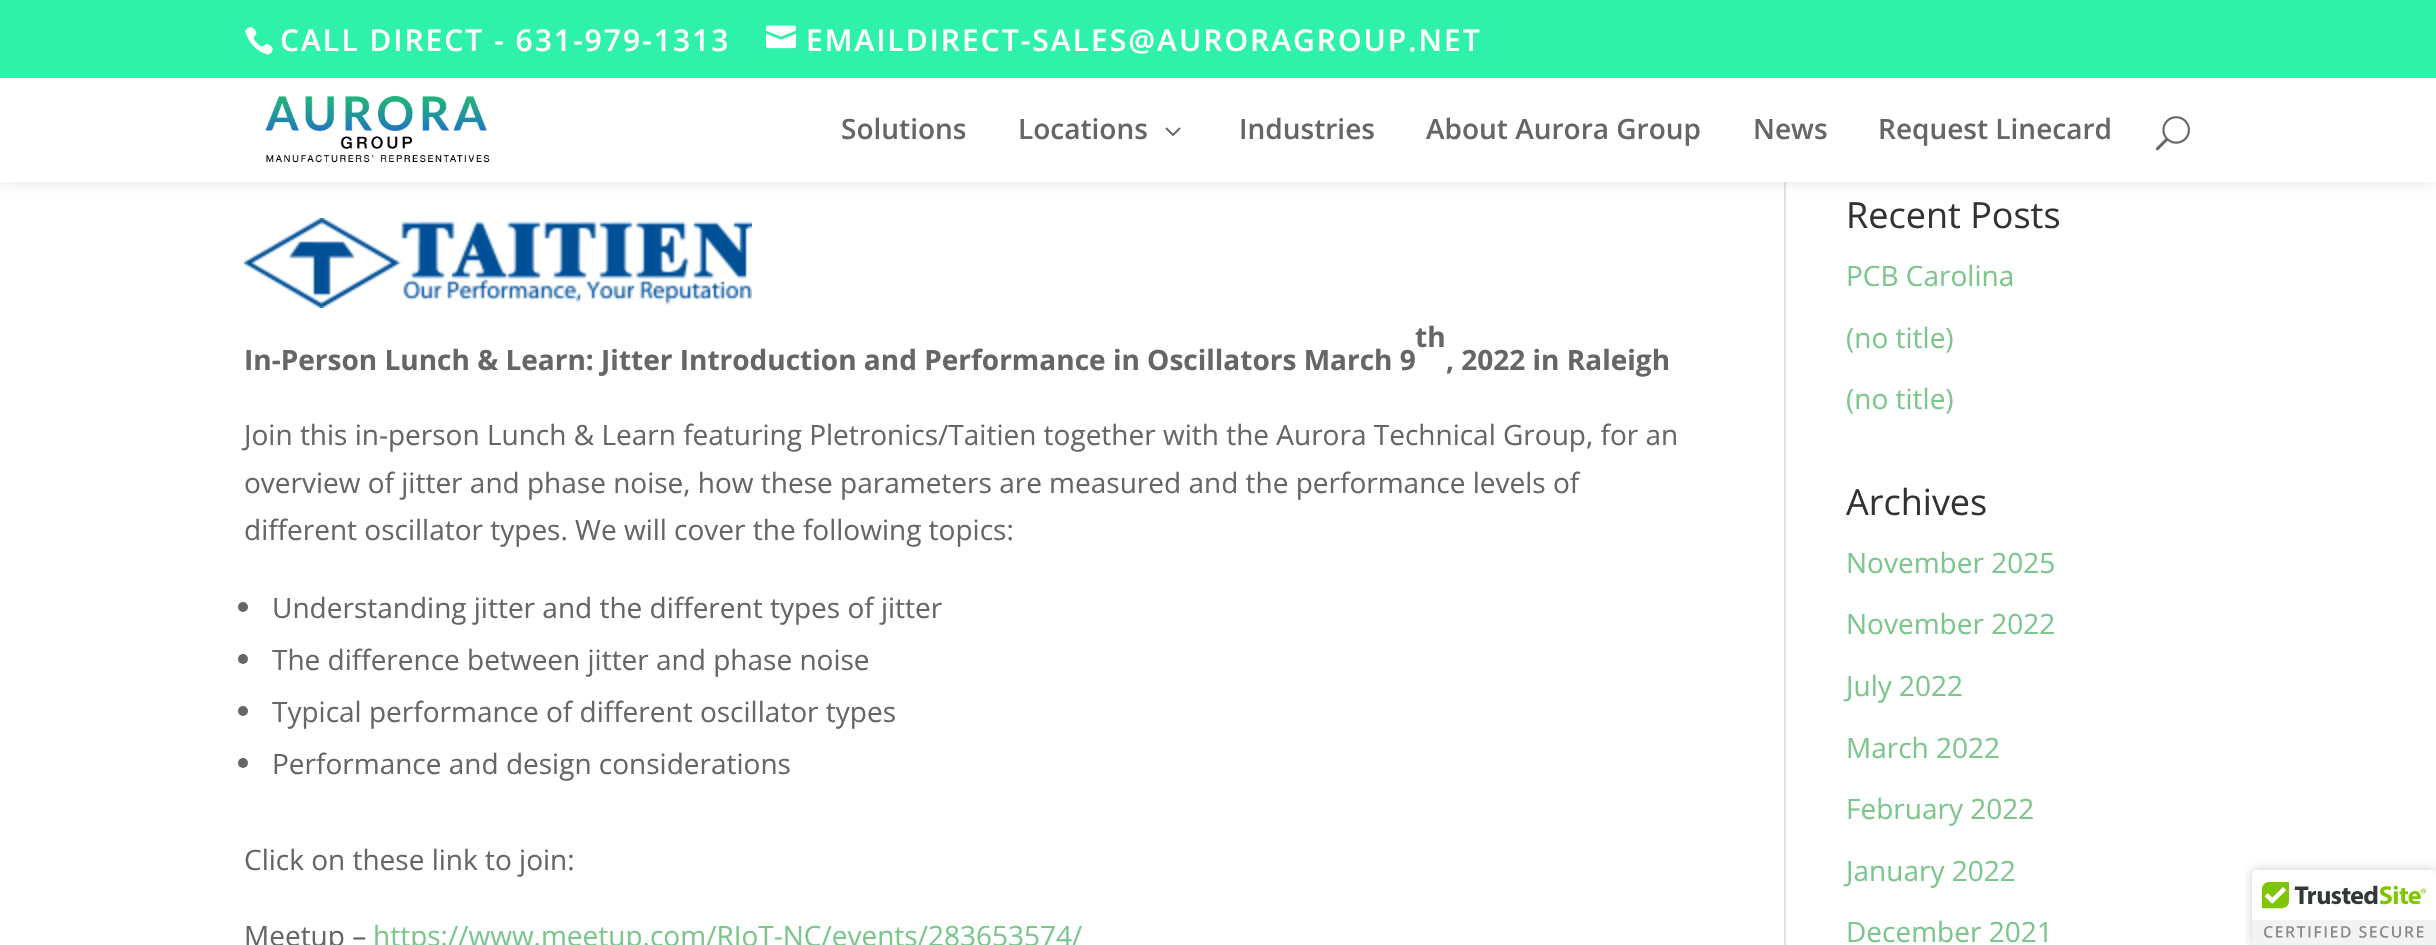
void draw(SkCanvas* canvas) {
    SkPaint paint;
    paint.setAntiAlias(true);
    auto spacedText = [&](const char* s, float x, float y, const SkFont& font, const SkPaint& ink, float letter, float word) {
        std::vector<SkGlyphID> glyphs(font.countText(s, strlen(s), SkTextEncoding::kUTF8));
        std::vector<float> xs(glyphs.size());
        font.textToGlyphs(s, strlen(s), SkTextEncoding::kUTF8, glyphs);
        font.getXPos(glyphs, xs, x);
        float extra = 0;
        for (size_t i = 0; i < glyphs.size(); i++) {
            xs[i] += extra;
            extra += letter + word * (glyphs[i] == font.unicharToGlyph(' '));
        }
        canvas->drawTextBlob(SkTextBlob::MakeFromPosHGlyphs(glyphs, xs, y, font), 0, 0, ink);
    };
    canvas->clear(0xFFFFFFFF);
    paint.setColor(0xFFE2E2E2);
    canvas->drawRect(SkRect::MakeXYWH(1784, 182, 2, 763), paint);
    paint.setColor(0x1A000000);
    paint.setMaskFilter(SkMaskFilter::MakeBlur(kNormal_SkBlurStyle, 7));
    canvas->drawRect(SkRect::MakeXYWH(0, 78, 2436, 104), paint);
    paint.setMaskFilter(nullptr);
    paint.setColor(0xFF2EF2AA);
    canvas->drawRect(SkRect::MakeXYWH(0, 0, 2436, 78), paint);
    canvas->drawImageRect(SkImages::DeferredFromEncodedData(SkData::MakeFromFileName("img1.png")), SkRect::MakeXYWH(245, 27, 28, 28), SkSamplingOptions());
    SkFont font1(fontMgr->matchFamilyStyle("Open Sans", SkFontStyle(600, SkFontStyle::kNormal_Width, SkFontStyle::kUpright_Slant)), 30);
    font1.setSubpixel(true);
    paint.setColor(0xFFFFFFFF);
    spacedText("CALL DIRECT - 631-979-1313", 280, 51, font1, paint, 2, 0);
    canvas->drawImageRect(SkImages::DeferredFromEncodedData(SkData::MakeFromFileName("img2.png")), SkRect::MakeXYWH(766, 25, 30, 24), SkSamplingOptions());
    spacedText("EMAILDIRECT-SALES@AURORAGROUP.NET", 806, 51, font1, paint, 2, 0);
    canvas->drawRect(SkRect::MakeXYWH(0, 78, 2436, 104), paint);
    canvas->drawImageRect(SkImages::DeferredFromEncodedData(SkData::MakeFromFileName("img3.png")), SkRect::MakeXYWH(265, 95, 225, 68), SkSamplingOptions());
    SkFont font2(fontMgr->matchFamilyStyle("Open Sans", SkFontStyle(600, SkFontStyle::kNormal_Width, SkFontStyle::kUpright_Slant)), 28);
    font2.setSubpixel(true);
    paint.setColor(0xFF666666);
    canvas->drawString("Solutions", 841, 139, font2, paint);
    canvas->drawString("Locations", 1018, 139, font2, paint);
    canvas->drawImageRect(SkImages::DeferredFromEncodedData(SkData::MakeFromFileName("img4.png")), SkRect::MakeXYWH(1165, 127, 16, 9), SkSamplingOptions());
    canvas->drawString("Industries", 1239, 139, font2, paint);
    canvas->drawString("About Aurora Group", 1426, 139, font2, paint);
    canvas->drawString("News", 1753, 139, font2, paint);
    canvas->drawString("Request Linecard", 1878, 139, font2, paint);
    canvas->drawImageRect(SkImages::DeferredFromEncodedData(SkData::MakeFromFileName("img5.png")), SkRect::MakeXYWH(2155, 116, 35, 35), SkSamplingOptions());
    canvas->drawImageRect(SkImages::DeferredFromEncodedData(SkData::MakeFromFileName("img6.png")), SkRect::MakeXYWH(244, 218, 508, 90), SkSamplingOptions());
    SkFont font3(fontMgr->matchFamilyStyle("Open Sans", SkFontStyle::Bold()), 28);
    font3.setSubpixel(true);
    canvas->drawString("th", 1415, 347, font3, paint);
    canvas->drawString("In-Person Lunch & Learn: Jitter Introduction and Performance in Oscillators March 9", 244, 370, font3, paint);
    canvas->drawString(", 2022 in Raleigh", 1446, 370, font3, paint);
    SkFont font4(fontMgr->matchFamilyStyle("Open Sans", SkFontStyle::Normal()), 28);
    font4.setSubpixel(true);
    canvas->drawString("Join this in-person Lunch & Learn featuring Pletronics/Taitien together with the Aurora Technical Group, for an", 244, 445, font4, paint);
    canvas->drawString("overview of jitter and phase noise, how these parameters are measured and the performance levels of", 244, 493, font4, paint);
    canvas->drawString("different oscillator types. We will cover the following topics:", 244, 540, font4, paint);
    canvas->drawCircle(243, 607, 5, paint);
    canvas->drawString("Understanding jitter and the different types of jitter", 272, 618, font4, paint);
    canvas->drawCircle(243, 659, 5, paint);
    canvas->drawString("The difference between jitter and phase noise", 272, 670, font4, paint);
    canvas->drawCircle(243, 711, 5, paint);
    canvas->drawString("Typical performance of different oscillator types", 272, 722, font4, paint);
    canvas->drawCircle(243, 763, 5, paint);
    canvas->drawString("Performance and design considerations", 272, 774, font4, paint);
    canvas->drawString("Click on these link to join:", 244, 870, font4, paint);
    canvas->drawString("Meetup –", 244, 946, font4, paint);
    paint.setColor(0xFF7CC68D);
    canvas->drawString("https://www.meetup.com/RIoT-NC/events/283653574/", 373, 946, font4, paint);
    SkFont font5(fontMgr->matchFamilyStyle("Open Sans", SkFontStyle::Normal()), 36);
    font5.setSubpixel(true);
    paint.setColor(0xFF333333);
    canvas->drawString("Recent Posts", 1846, 228, font5, paint);
    paint.setColor(0xFF7CC68D);
    canvas->drawString("PCB Carolina", 1846, 286, font4, paint);
    canvas->drawString("(no title)", 1846, 348, font4, paint);
    canvas->drawString("(no title)", 1846, 409, font4, paint);
    paint.setColor(0xFF333333);
    canvas->drawString("Archives", 1846, 515, font5, paint);
    paint.setColor(0xFF7CC68D);
    canvas->drawString("November 2025", 1846, 573, font4, paint);
    canvas->drawString("November 2022", 1846, 634, font4, paint);
    canvas->drawString("July 2022", 1846, 696, font4, paint);
    canvas->drawString("March 2022", 1846, 758, font4, paint);
    canvas->drawString("February 2022", 1846, 819, font4, paint);
    canvas->drawString("January 2022", 1846, 881, font4, paint);
    canvas->drawString("December 2021", 1846, 942, font4, paint);
    paint.setColor(0x33000000);
    paint.setMaskFilter(SkMaskFilter::MakeBlur(kNormal_SkBlurStyle, 5));
    canvas->drawRoundRect(SkRect::MakeXYWH(2252, 870, 184, 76), 4, 4, paint);
    paint.setMaskFilter(nullptr);
    paint.setColor(0xFFFFFFFF);
    canvas->drawPath(SkPathBuilder().moveTo(2256, 870).lineTo(2436, 870).lineTo(2436, 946).lineTo(2252, 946).lineTo(2252, 874).cubicTo(2252, 872, 2254, 870, 2256, 870).close().detach(), paint);
    canvas->drawImageRect(SkImages::DeferredFromEncodedData(SkData::MakeFromFileName("img7.png")), SkRect::MakeXYWH(2252, 870, 184, 75), SkSamplingOptions());
}
